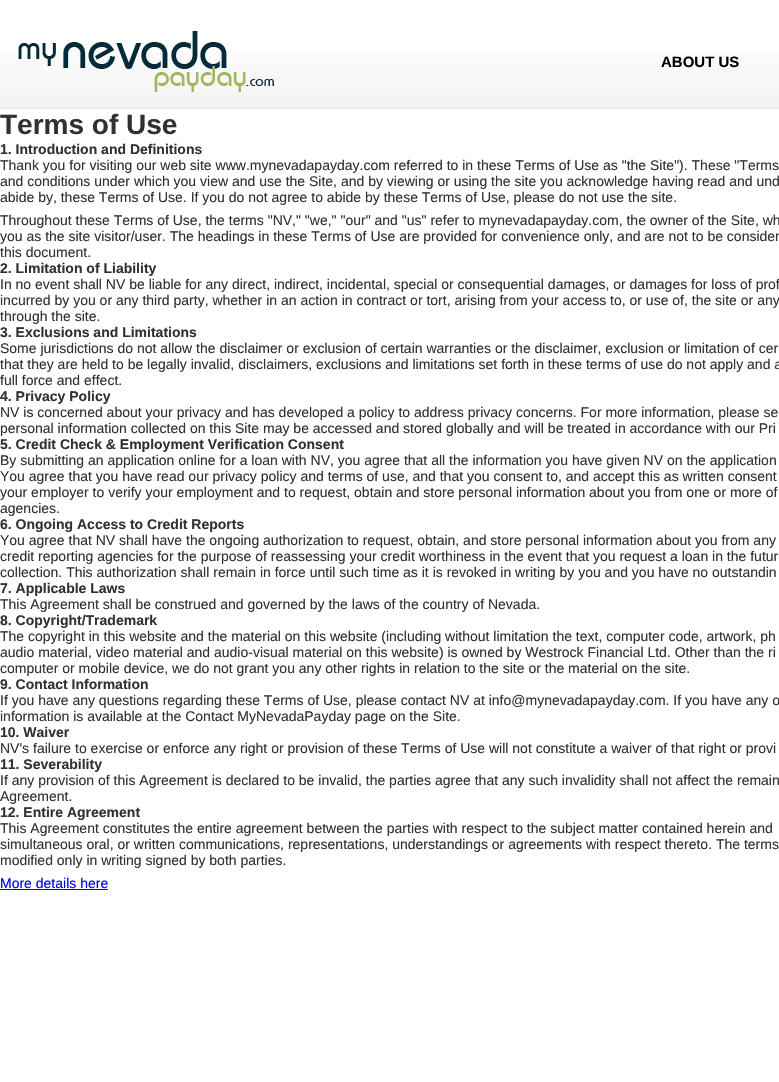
void draw(SkCanvas* canvas) {
    SkPaint paint;
    paint.setAntiAlias(true);
    canvas->clear(0xFFFFFFFF);
    canvas->drawImageRect(SkImages::DeferredFromEncodedData(SkData::MakeFromFileName("img1.png")), SkRect::MakeXYWH(0, 53, 779, 56), SkSamplingOptions());
    canvas->drawImageRect(SkImages::DeferredFromEncodedData(SkData::MakeFromFileName("img2.png")), SkRect::MakeXYWH(18, 31, 256, 61), SkSamplingOptions());
    SkFont font1(fontMgr->matchFamilyStyle("Liberation Sans", SkFontStyle::Bold()), 15);
    font1.setSubpixel(true);
    paint.setColor(0xFF000000);
    canvas->drawString("ABOUT US", 661, 67, font1, paint);
    SkFont font2(fontMgr->matchFamilyStyle("Liberation Sans", SkFontStyle::Bold()), 28);
    font2.setSubpixel(true);
    paint.setColor(0xFF313131);
    canvas->drawString("Terms of Use", 0, 134, font2, paint);
    SkFont font3(fontMgr->matchFamilyStyle("Liberation Sans", SkFontStyle::Bold()), 14);
    font3.setSubpixel(true);
    canvas->drawString("1. Introduction and Definitions", 0, 154, font3, paint);
    SkFont font4(fontMgr->matchFamilyStyle("Liberation Sans", SkFontStyle::Normal()), 14);
    font4.setSubpixel(true);
    canvas->drawString("Thank you for visiting our web site www.mynevadapayday.com referred to in these Terms of Use as \"the Site\"). These \"Terms", 0, 170, font4, paint);
    canvas->drawString("and conditions under which you view and use the Site, and by viewing or using the site you acknowledge having read and und", 0, 186, font4, paint);
    canvas->drawString("abide by, these Terms of Use. If you do not agree to abide by these Terms of Use, please do not use the site.", 0, 202, font4, paint);
    canvas->drawString("Throughout these Terms of Use, the terms \"NV,\" \"we,\" \"our\" and \"us\" refer to mynevadapayday.com, the owner of the Site, wh", 0, 225, font4, paint);
    canvas->drawString("you as the site visitor/user. The headings in these Terms of Use are provided for convenience only, and are not to be consider", 0, 241, font4, paint);
    canvas->drawString("this document.", 0, 257, font4, paint);
    canvas->drawString("2. Limitation of Liability", 0, 273, font3, paint);
    canvas->drawString("In no event shall NV be liable for any direct, indirect, incidental, special or consequential damages, or damages for loss of prof", 0, 289, font4, paint);
    canvas->drawString("incurred by you or any third party, whether in an action in contract or tort, arising from your access to, or use of, the site or any", 0, 305, font4, paint);
    canvas->drawString("through the site.", 0, 321, font4, paint);
    canvas->drawString("3. Exclusions and Limitations", 0, 337, font3, paint);
    canvas->drawString("Some jurisdictions do not allow the disclaimer or exclusion of certain warranties or the disclaimer, exclusion or limitation of cer", 0, 353, font4, paint);
    canvas->drawString("that they are held to be legally invalid, disclaimers, exclusions and limitations set forth in these terms of use do not apply and a", 0, 369, font4, paint);
    canvas->drawString("full force and effect.", 0, 385, font4, paint);
    canvas->drawString("4. Privacy Policy", 0, 401, font3, paint);
    canvas->drawString("NV is concerned about your privacy and has developed a policy to address privacy concerns. For more information, please se", 0, 417, font4, paint);
    canvas->drawString("personal information collected on this Site may be accessed and stored globally and will be treated in accordance with our Pri", 0, 433, font4, paint);
    canvas->drawString("5. Credit Check & Employment Verification Consent", 0, 449, font3, paint);
    canvas->drawString("By submitting an application online for a loan with NV, you agree that all the information you have given NV on the application", 0, 465, font4, paint);
    canvas->drawString("You agree that you have read our privacy policy and terms of use, and that you consent to, and accept this as written consent", 0, 481, font4, paint);
    canvas->drawString("your employer to verify your employment and to request, obtain and store personal information about you from one or more of", 0, 497, font4, paint);
    canvas->drawString("agencies.", 0, 513, font4, paint);
    canvas->drawString("6. Ongoing Access to Credit Reports", 0, 529, font3, paint);
    canvas->drawString("You agree that NV shall have the ongoing authorization to request, obtain, and store personal information about you from any", 0, 545, font4, paint);
    canvas->drawString("credit reporting agencies for the purpose of reassessing your credit worthiness in the event that you request a loan in the futur", 0, 561, font4, paint);
    canvas->drawString("collection. This authorization shall remain in force until such time as it is revoked in writing by you and you have no outstandin", 0, 577, font4, paint);
    canvas->drawString("7. Applicable Laws", 0, 593, font3, paint);
    canvas->drawString("This Agreement shall be construed and governed by the laws of the country of Nevada.", 0, 609, font4, paint);
    canvas->drawString("8. Copyright/Trademark", 0, 625, font3, paint);
    canvas->drawString("The copyright in this website and the material on this website (including without limitation the text, computer code, artwork, ph", 0, 641, font4, paint);
    canvas->drawString("audio material, video material and audio-visual material on this website) is owned by Westrock Financial Ltd. Other than the ri", 0, 657, font4, paint);
    canvas->drawString("computer or mobile device, we do not grant you any other rights in relation to the site or the material on the site.", 0, 673, font4, paint);
    canvas->drawString("9. Contact Information", 0, 689, font3, paint);
    canvas->drawString("If you have any questions regarding these Terms of Use, please contact NV at info@mynevadapayday.com. If you have any o", 0, 705, font4, paint);
    canvas->drawString("information is available at the Contact MyNevadaPayday page on the Site.", 0, 721, font4, paint);
    canvas->drawString("10. Waiver", 0, 737, font3, paint);
    canvas->drawString("NV's failure to exercise or enforce any right or provision of these Terms of Use will not constitute a waiver of that right or provi", 0, 753, font4, paint);
    canvas->drawString("11. Severability", 0, 769, font3, paint);
    canvas->drawString("If any provision of this Agreement is declared to be invalid, the parties agree that any such invalidity shall not affect the remain", 0, 785, font4, paint);
    canvas->drawString("Agreement.", 0, 801, font4, paint);
    canvas->drawString("12. Entire Agreement", 0, 817, font3, paint);
    canvas->drawString("This Agreement constitutes the entire agreement between the parties with respect to the subject matter contained herein and", 0, 833, font4, paint);
    canvas->drawString("simultaneous oral, or written communications, representations, understandings or agreements with respect thereto. The terms", 0, 849, font4, paint);
    canvas->drawString("modified only in writing signed by both parties.", 0, 865, font4, paint);
    paint.setColor(0xFF0000EE);
    canvas->drawString("More details here", 0, 888, font4, paint);
    canvas->drawRect(SkRect::MakeXYWH(0, 889, 108, 1), paint);
}
